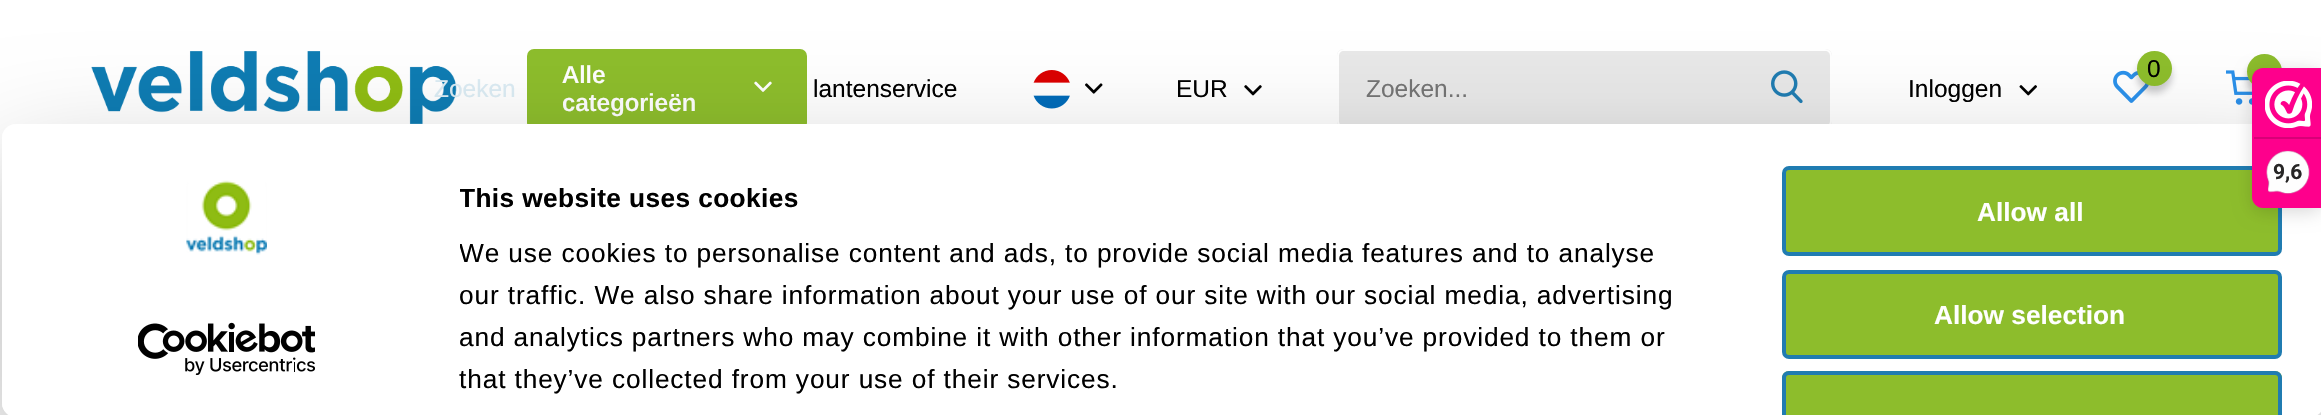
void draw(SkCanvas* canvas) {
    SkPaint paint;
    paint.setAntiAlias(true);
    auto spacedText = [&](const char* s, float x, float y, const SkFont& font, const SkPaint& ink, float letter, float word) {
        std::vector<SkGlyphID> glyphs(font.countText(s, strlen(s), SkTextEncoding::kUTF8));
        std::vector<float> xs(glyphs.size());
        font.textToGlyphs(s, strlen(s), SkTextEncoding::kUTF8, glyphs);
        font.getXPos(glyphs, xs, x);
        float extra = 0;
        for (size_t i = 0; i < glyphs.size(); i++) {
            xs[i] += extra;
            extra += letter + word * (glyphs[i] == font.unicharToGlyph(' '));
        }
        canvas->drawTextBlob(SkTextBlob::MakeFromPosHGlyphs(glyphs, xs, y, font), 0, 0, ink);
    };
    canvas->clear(0xFFFFFFFF);
    canvas->drawImageRect(SkImages::DeferredFromEncodedData(SkData::MakeFromFileName("img1.png")), SkRect::MakeXYWH(91, 51, 366, 73), SkSamplingOptions());
    SkFont font1(fontMgr->matchFamilyStyle("Arimo", SkFontStyle::Normal()), 24.5f);
    font1.setSubpixel(true);
    paint.setColor(0xFFDBECF4);
    canvas->drawString("Zoeken", 434, 97, font1, paint);
    paint.setColor(0xFF8DBD2C);
    canvas->drawRoundRect(SkRect::MakeXYWH(527, 49, 280, 81), 7, 7, paint);
    SkFont font2(fontMgr->matchFamilyStyle("Arimo", SkFontStyle(600, SkFontStyle::kNormal_Width, SkFontStyle::kUpright_Slant)), 24.5f);
    font2.setSubpixel(true);
    paint.setColor(0xFFFFFFFF);
    canvas->drawString("Alle", 562, 83, font2, paint);
    canvas->drawImageRect(SkImages::DeferredFromEncodedData(SkData::MakeFromFileName("img2.png")), SkRect::MakeXYWH(754, 81, 18, 11), SkSamplingOptions());
    canvas->drawString("categorieën", 562, 111, font2, paint);
    paint.setColor(0xFF000000);
    canvas->drawString("lantenservice", 813, 97, font1, paint);
    canvas->drawImageRect(SkImages::DeferredFromEncodedData(SkData::MakeFromFileName("img3.png")), SkRect::MakeXYWH(1033, 70, 37, 39), SkSamplingOptions());
    canvas->drawImageRect(SkImages::DeferredFromEncodedData(SkData::MakeFromFileName("img4.png")), SkRect::MakeXYWH(1085, 83, 18, 11), SkSamplingOptions());
    canvas->drawString("EUR", 1176, 97, font1, paint);
    canvas->drawImageRect(SkImages::DeferredFromEncodedData(SkData::MakeFromFileName("img5.png")), SkRect::MakeXYWH(1244, 85, 18, 11), SkSamplingOptions());
    paint.setColor(0xFFE8E8E8);
    canvas->drawPath(SkPathBuilder().moveTo(1344, 49).lineTo(1745, 49).lineTo(1745, 128).lineTo(1344, 128).cubicTo(1340, 128, 1337, 125, 1337, 121).lineTo(1337, 56).cubicTo(1337, 52, 1340, 49, 1344, 49).close().detach(), paint);
    paint.setColor(0xFFFFFFFF);
    canvas->drawPath(SkPathBuilder(SkPathFillType::kEvenOdd).moveTo(1344, 49).lineTo(1745, 49).lineTo(1745, 128).lineTo(1344, 128).cubicTo(1340, 128, 1337, 125, 1337, 121).lineTo(1337, 56).cubicTo(1337, 52, 1340, 49, 1344, 49).close().moveTo(1344, 51).lineTo(1745, 51).lineTo(1745, 126).lineTo(1344, 126).cubicTo(1341, 126, 1339, 124, 1339, 121).lineTo(1339, 56).cubicTo(1339, 53, 1341, 51, 1344, 51).close().detach(), paint);
    paint.setColor(0xFF757575);
    canvas->drawString("Zoeken...", 1366, 97, font1, paint);
    paint.setColor(0xFFE8E8E8);
    canvas->drawPath(SkPathBuilder().moveTo(1745, 49).lineTo(1825, 49).cubicTo(1829, 49, 1832, 52, 1832, 56).lineTo(1832, 121).cubicTo(1832, 125, 1829, 128, 1825, 128).lineTo(1745, 128).close().detach(), paint);
    paint.setColor(0xFFFFFFFF);
    canvas->drawPath(SkPathBuilder(SkPathFillType::kEvenOdd).moveTo(1745, 49).lineTo(1825, 49).cubicTo(1829, 49, 1832, 52, 1832, 56).lineTo(1832, 121).cubicTo(1832, 125, 1829, 128, 1825, 128).lineTo(1745, 128).close().moveTo(1745, 51).lineTo(1825, 51).cubicTo(1828, 51, 1830, 53, 1830, 56).lineTo(1830, 121).cubicTo(1830, 124, 1828, 126, 1825, 126).lineTo(1745, 126).close().detach(), paint);
    canvas->drawImageRect(SkImages::DeferredFromEncodedData(SkData::MakeFromFileName("img6.png")), SkRect::MakeXYWH(1771, 70, 32, 34), SkSamplingOptions());
    paint.setColor(0xFF000000);
    canvas->drawString("Inloggen", 1908, 97, font1, paint);
    canvas->drawImageRect(SkImages::DeferredFromEncodedData(SkData::MakeFromFileName("img7.png")), SkRect::MakeXYWH(2019, 85, 18, 11), SkSamplingOptions());
    canvas->drawImageRect(SkImages::DeferredFromEncodedData(SkData::MakeFromFileName("img8.png")), SkRect::MakeXYWH(2113, 70, 36, 33), SkSamplingOptions());
    paint.setColor(0x40282830);
    paint.setMaskFilter(SkMaskFilter::MakeBlur(kNormal_SkBlurStyle, 3.5f));
    canvas->drawRoundRect(SkRect::MakeXYWH(2137, 58, 35, 35), 17.5f, 17.5f, paint);
    paint.setMaskFilter(nullptr);
    paint.setColor(0xFF8DBD2C);
    canvas->drawCircle(2154.5f, 68.5f, 17.5f, paint);
    paint.setColor(0xFF000000);
    canvas->drawString("0", 2147, 77, font1, paint);
    canvas->drawImageRect(SkImages::DeferredFromEncodedData(SkData::MakeFromFileName("img9.png")), SkRect::MakeXYWH(2226, 70, 26, 35), SkSamplingOptions());
    paint.setColor(0x40282830);
    paint.setMaskFilter(SkMaskFilter::MakeBlur(kNormal_SkBlurStyle, 3.5f));
    canvas->drawRoundRect(SkRect::MakeXYWH(2247, 61, 35, 35), 17.5f, 17.5f, paint);
    paint.setMaskFilter(nullptr);
    paint.setColor(0xFF8DBD2C);
    canvas->drawCircle(2264.5f, 71.5f, 17.5f, paint);
    canvas->save();
    canvas->clipPath(SkPathBuilder(SkPathFillType::kEvenOdd).moveTo(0, 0).lineTo(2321, 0).lineTo(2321, 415).lineTo(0, 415).close().moveTo(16, 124).lineTo(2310, 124).cubicTo(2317.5f, 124, 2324, 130.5f, 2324, 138).lineTo(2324, 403).cubicTo(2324, 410.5f, 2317.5f, 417, 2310, 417).lineTo(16, 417).cubicTo(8.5f, 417, 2, 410.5f, 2, 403).lineTo(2, 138).cubicTo(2, 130.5f, 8.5f, 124, 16, 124).close().detach(), true);
    paint.setColor(0x4D000000);
    paint.setMaskFilter(SkMaskFilter::MakeBlur(kNormal_SkBlurStyle, 61));
    canvas->drawRoundRect(SkRect::MakeXYWH(2, 177, 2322, 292), 14, 14, paint);
    paint.setMaskFilter(nullptr);
    canvas->restore();
    paint.setColor(0xFFFFFFFF);
    canvas->drawRoundRect(SkRect::MakeXYWH(2, 124, 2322, 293), 14, 14, paint);
    paint.setColor(0xFF8DBD2C);
    canvas->drawRoundRect(SkRect::MakeXYWH(1784, 168, 496, 86), 5, 5, paint);
    paint.setStyle(SkPaint::kStroke_Style);
    paint.setStrokeWidth(4);
    paint.setColor(0xFF207CB1);
    canvas->drawRoundRect(SkRect::MakeXYWH(1784, 168, 496, 86), 5, 5, paint);
    paint.setStyle(SkPaint::kFill_Style);
    paint.setColor(0x26000000);
    paint.setMaskFilter(SkMaskFilter::MakeBlur(kNormal_SkBlurStyle, 9));
    canvas->drawRoundRect(SkRect::MakeXYWH(2252, 72, 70, 140), 11, 11, paint);
    paint.setMaskFilter(nullptr);
    paint.setColor(0xFFFE008C);
    canvas->drawPath(SkPathBuilder().moveTo(2263, 68).lineTo(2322, 68).lineTo(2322, 208).lineTo(2263, 208).cubicTo(2257, 208, 2252, 203, 2252, 197).lineTo(2252, 79).cubicTo(2252, 73, 2257, 68, 2263, 68).close().detach(), paint);
    canvas->drawImageRect(SkImages::DeferredFromEncodedData(SkData::MakeFromFileName("img10.png")), SkRect::MakeXYWH(2265, 81, 47, 47), SkSamplingOptions());
    paint.setColor(0xFFD80077);
    canvas->drawRect(SkRect::MakeXYWH(2254, 137, 67, 2), paint);
    canvas->drawImageRect(SkImages::DeferredFromEncodedData(SkData::MakeFromFileName("img11.png")), SkRect::MakeXYWH(2266, 150, 44, 45), SkSamplingOptions());
    SkFont font3(fontMgr->matchFamilyStyle("Roboto", SkFontStyle::Bold()), 21);
    font3.setSubpixel(true);
    paint.setColor(0xFF272626);
    canvas->drawString("9,6", 2273, 179, font3, paint);
    canvas->drawImageRect(SkImages::DeferredFromEncodedData(SkData::MakeFromFileName("img12.png")), SkRect::MakeXYWH(186, 180, 81, 75), SkSamplingOptions());
    canvas->drawImageRect(SkImages::DeferredFromEncodedData(SkData::MakeFromFileName("img13.png")), SkRect::MakeXYWH(138, 322, 177, 53), SkSamplingOptions());
    canvas->save();
    canvas->clipRect(SkRect::MakeXYWH(460, 177, 1271, 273));
    SkFont font4(fontMgr->matchFamilyStyle("Liberation Sans", SkFontStyle::Bold()), 26.25f);
    font4.setSubpixel(true);
    paint.setColor(0xFF000000);
    spacedText("This website uses cookies", 459, 207, font4, paint, 0.4f, 0);
    SkFont font5(fontMgr->matchFamilyStyle("Liberation Sans", SkFontStyle::Normal()), 26.25f);
    font5.setSubpixel(true);
    spacedText("We use cookies to personalise content and ads, to provide social media features and to analyse", 459, 262, font5, paint, 0.88f, 0);
    spacedText("our traffic. We also share information about your use of our site with our social media, advertising", 459, 304, font5, paint, 0.88f, 0);
    canvas->restore();
    spacedText("and analytics partners who may combine it with other information that you’ve provided to them or", 459, 346, font5, paint, 0.88f, 0);
    spacedText("that they’ve collected from your use of their services.", 459, 388, font5, paint, 0.88f, 0);
    paint.setColor(0xFFFFFFFF);
    canvas->drawString("Allow all", 1977, 221, font4, paint);
    paint.setColor(0xFF8DBD2C);
    canvas->drawRoundRect(SkRect::MakeXYWH(1784, 272, 496, 85), 5, 5, paint);
    paint.setStyle(SkPaint::kStroke_Style);
    paint.setColor(0xFF207CB1);
    canvas->drawRoundRect(SkRect::MakeXYWH(1784, 272, 496, 85), 5, 5, paint);
    paint.setStyle(SkPaint::kFill_Style);
    paint.setColor(0xFFFFFFFF);
    canvas->drawString("Allow selection", 1934, 324, font4, paint);
    paint.setColor(0xFF8DBD2C);
    canvas->drawPath(SkPathBuilder().moveTo(1789, 371).lineTo(2275, 371).cubicTo(2279, 371, 2282, 374, 2282, 378).lineTo(2282, 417).lineTo(1782, 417).lineTo(1782, 378).cubicTo(1782, 374, 1785, 371, 1789, 371).close().detach(), paint);
    paint.setColor(0xFF207CB1);
    canvas->drawPath(SkPathBuilder().moveTo(1789, 371).cubicTo(1785, 371, 1782, 374, 1782, 378).lineTo(1782, 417).lineTo(1786, 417).lineTo(1786, 378).cubicTo(1786, 376, 1787, 375, 1789, 375).lineTo(2275, 375).cubicTo(2277, 375, 2278, 376, 2278, 378).lineTo(2278, 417).lineTo(2282, 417).lineTo(2282, 378).cubicTo(2282, 374, 2279, 371, 2275, 371).close().detach(), paint);
}
